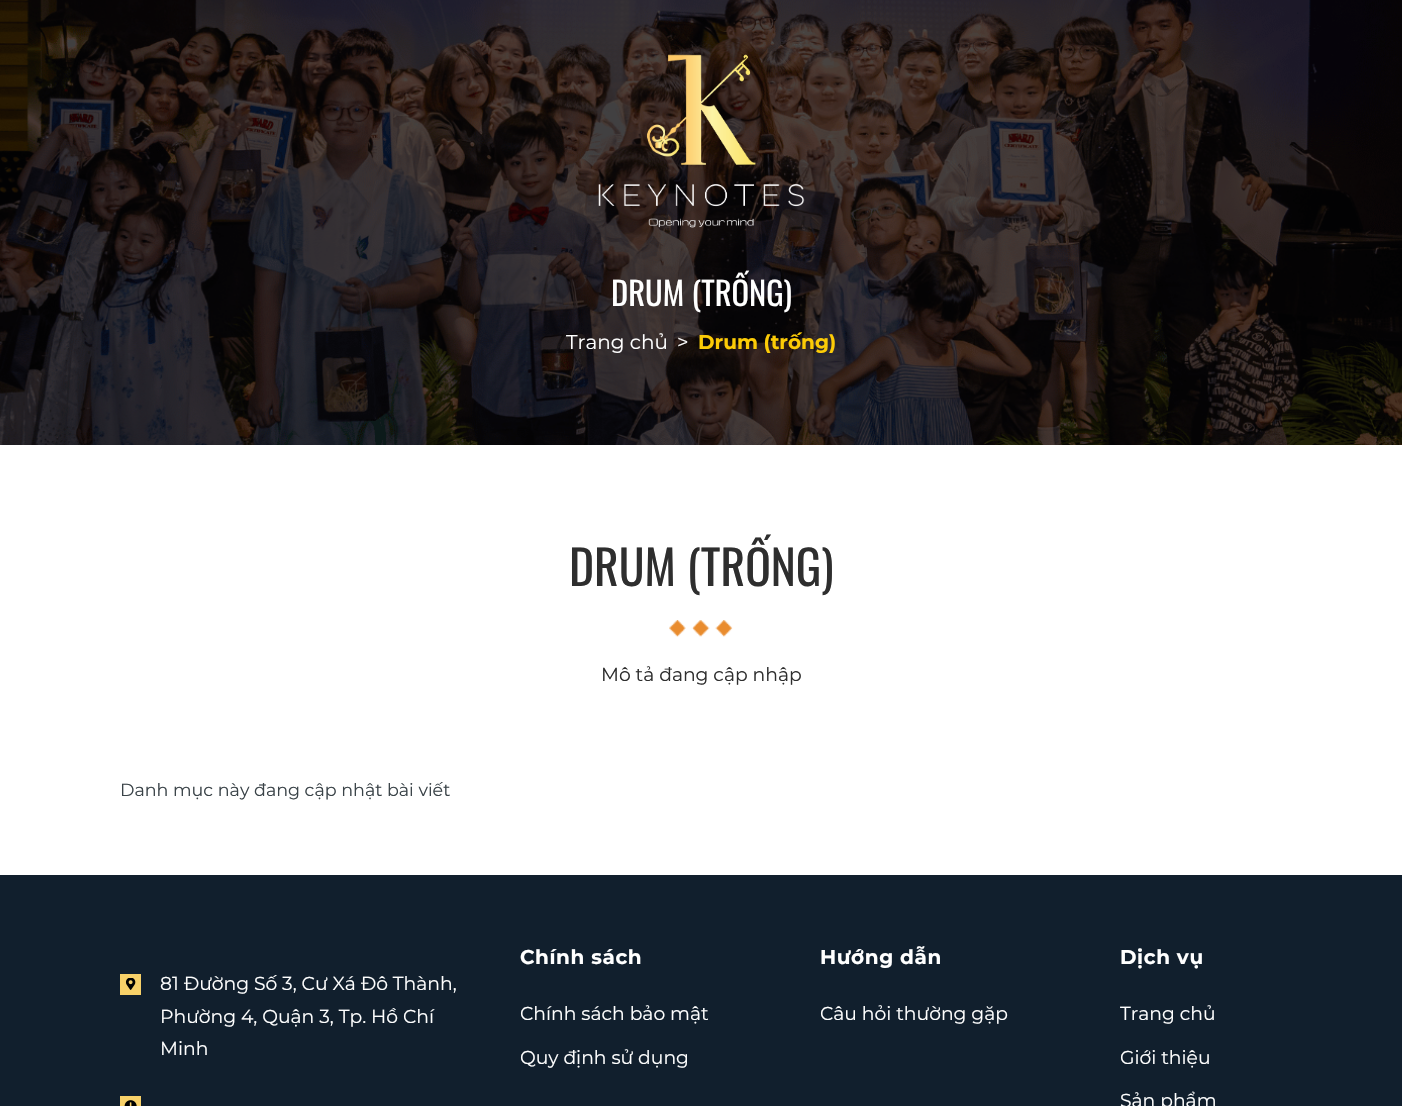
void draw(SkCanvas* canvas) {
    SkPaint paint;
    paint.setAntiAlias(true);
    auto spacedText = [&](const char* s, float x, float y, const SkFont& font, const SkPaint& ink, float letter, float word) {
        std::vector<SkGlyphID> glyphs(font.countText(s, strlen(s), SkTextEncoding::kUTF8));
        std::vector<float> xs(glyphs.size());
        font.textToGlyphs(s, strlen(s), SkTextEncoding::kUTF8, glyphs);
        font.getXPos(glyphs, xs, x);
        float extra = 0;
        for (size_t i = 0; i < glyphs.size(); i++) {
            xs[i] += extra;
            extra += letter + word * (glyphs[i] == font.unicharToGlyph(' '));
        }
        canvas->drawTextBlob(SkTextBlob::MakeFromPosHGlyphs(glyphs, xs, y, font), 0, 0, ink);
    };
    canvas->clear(0xFFFFFFFF);
    canvas->drawImageRect(SkImages::DeferredFromEncodedData(SkData::MakeFromFileName("img1.png")), SkRect::MakeXYWH(0, 0, 1402, 445), SkSamplingOptions());
    canvas->drawImageRect(SkImages::DeferredFromEncodedData(SkData::MakeFromFileName("img2.png")), SkRect::MakeXYWH(598, 54, 207, 174), SkSamplingOptions());
    SkFont font1(fontMgr->matchFamilyStyle("Oswald", SkFontStyle::Normal()), 32.5f);
    font1.setSubpixel(true);
    paint.setColor(0xFFFFFFFF);
    canvas->drawString("DRUM (TRỐNG)", 611, 306, font1, paint);
    SkFont font2(fontMgr->matchFamilyStyle("Montserrat", SkFontStyle::Normal()), 20);
    font2.setSubpixel(true);
    canvas->drawString("Trang chủ", 566, 349, font2, paint);
    canvas->drawString(">", 677, 349, font2, paint);
    SkFont font3(fontMgr->matchFamilyStyle("Montserrat", SkFontStyle::Bold()), 20);
    font3.setSubpixel(true);
    paint.setColor(0xFFFCCB06);
    canvas->drawString("Drum (trống)", 698, 349, font3, paint);
    SkFont font4(fontMgr->matchFamilyStyle("Oswald", SkFontStyle::Normal()), 47.5f);
    font4.setSubpixel(true);
    paint.setColor(0xFF2E2E2E);
    canvas->drawString("DRUM (TRỐNG)", 569, 586, font4, paint);
    canvas->drawImageRect(SkImages::DeferredFromEncodedData(SkData::MakeFromFileName("img3.png")), SkRect::MakeXYWH(669, 620, 64, 17), SkSamplingOptions());
    SkFont font5(fontMgr->matchFamilyStyle("Montserrat", SkFontStyle::Normal()), 18.75f);
    font5.setSubpixel(true);
    canvas->drawString("Mô tả đang cập nhập", 601, 681, font5, paint);
    SkFont font6(fontMgr->matchFamilyStyle("Montserrat", SkFontStyle::Normal()), 17.5f);
    font6.setSubpixel(true);
    paint.setColor(0xFF3A4348);
    canvas->drawString("Danh mục này đang cập nhật bài viết", 120, 796, font6, paint);
    paint.setColor(0xFF111F2D);
    canvas->drawRect(SkRect::MakeXYWH(0, 875, 1402, 231), paint);
    paint.setColor(0xFFF8D169);
    canvas->drawRect(SkRect::MakeXYWH(120, 974, 21, 21), paint);
    canvas->drawImageRect(SkImages::DeferredFromEncodedData(SkData::MakeFromFileName("img4.png")), SkRect::MakeXYWH(125, 978, 11, 12), SkSamplingOptions());
    paint.setColor(0xFFFFFFFF);
    canvas->drawString("81 Đường Số 3, Cư Xá Đô Thành,", 160, 990, font5, paint);
    canvas->drawString("Phường 4, Quận 3, Tp. Hồ Chí", 160, 1023, font5, paint);
    canvas->drawString("Minh", 160, 1055, font5, paint);
    paint.setColor(0xFFF8D169);
    canvas->drawRect(SkRect::MakeXYWH(120, 1096, 21, 10), paint);
    canvas->drawImageRect(SkImages::DeferredFromEncodedData(SkData::MakeFromFileName("img5.png")), SkRect::MakeXYWH(124, 1100, 13, 6), SkSamplingOptions());
    paint.setColor(0xFFFFFFFF);
    spacedText("Chính sách", 520, 964, font3, paint, 0.6f, 0);
    canvas->drawString("Chính sách bảo mật", 520, 1020, font5, paint);
    canvas->drawString("Quy định sử dụng", 520, 1064, font5, paint);
    spacedText("Hướng dẫn", 820, 964, font3, paint, 0.6f, 0);
    canvas->drawString("Câu hỏi thường gặp", 820, 1020, font5, paint);
    spacedText("Dịch vụ", 1120, 964, font3, paint, 0.6f, 0);
    canvas->drawString("Trang chủ", 1120, 1020, font5, paint);
    canvas->drawString("Giới thiệu", 1120, 1064, font5, paint);
    canvas->drawString("Sản phẩm", 1120, 1107, font5, paint);
}
